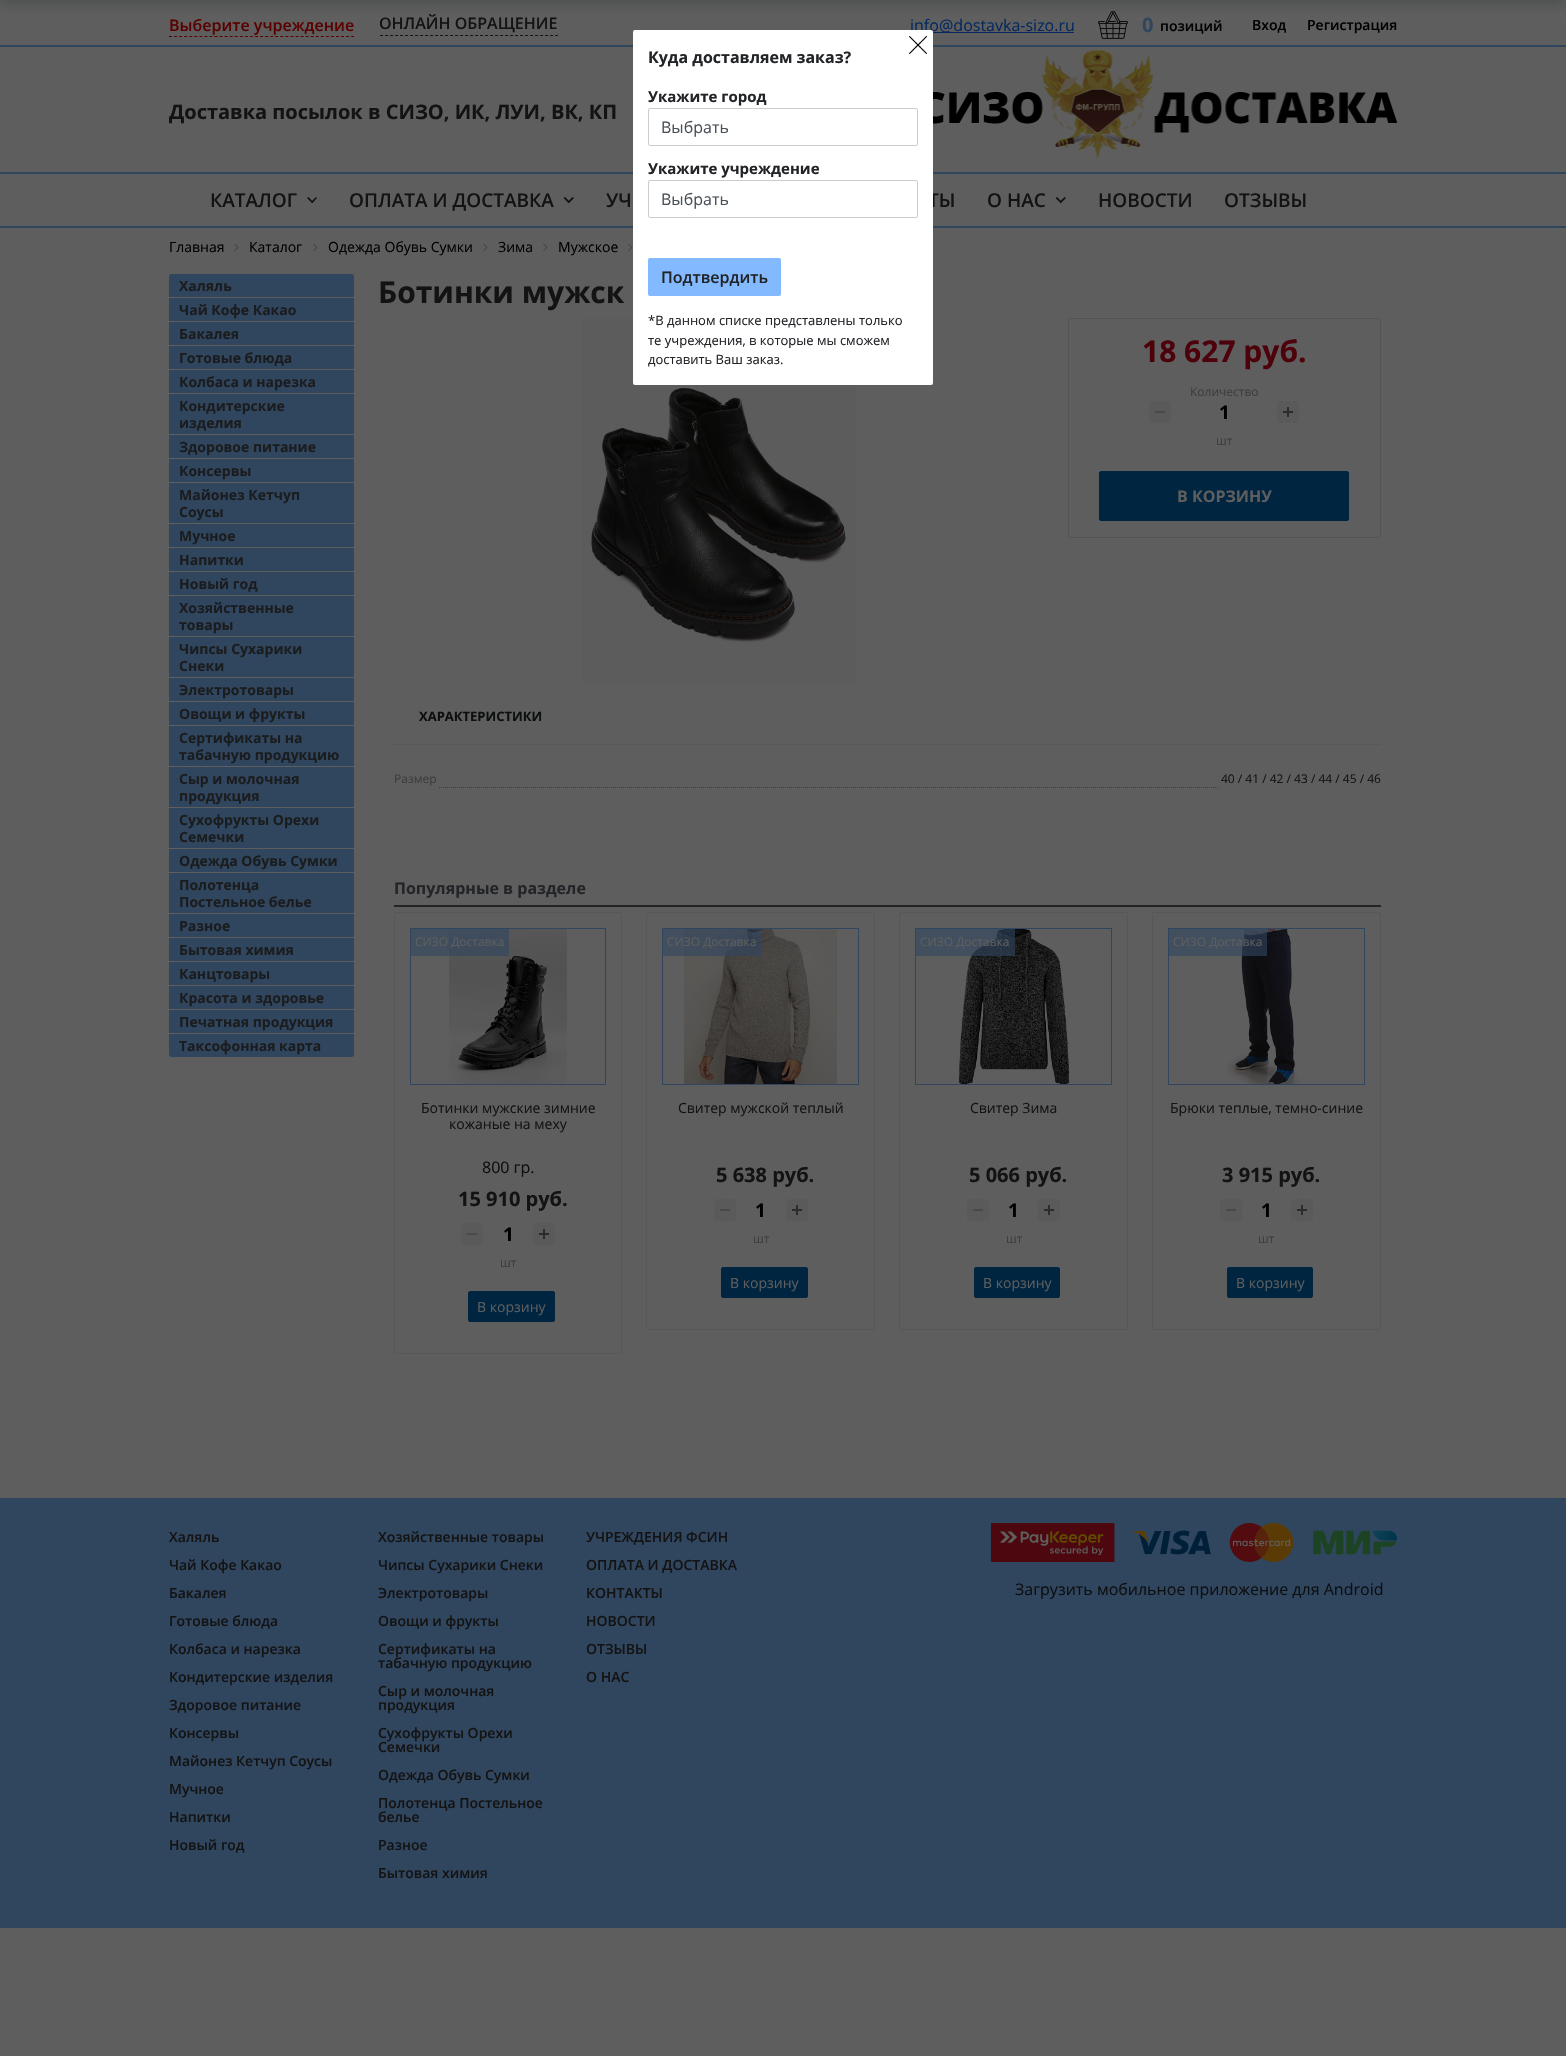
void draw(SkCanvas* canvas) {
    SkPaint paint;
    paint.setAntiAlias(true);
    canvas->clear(0xFF5E5E5E);
    SkFont font1(fontMgr->matchFamilyStyle("Open Sans", SkFontStyle(600, SkFontStyle::kNormal_Width, SkFontStyle::kUpright_Slant)), 16);
    font1.setSubpixel(true);
    paint.setColor(0xFF5B0000);
    canvas->drawString("Выберите учреждение", 169, 31, font1, paint);
    paint.setStyle(SkPaint::kStroke_Style);
    paint.setStrokeWidth(1);
    paint.setPathEffect(SkDashPathEffect::Make({{3, 2.06f}}, 0));
    canvas->drawPath(SkPathBuilder().moveTo(169, 36.5f).lineTo(354, 36.5f).detach(), paint);
    paint.setPathEffect(nullptr);
    paint.setColor(0xFF131313);
    paint.setPathEffect(SkDashPathEffect::Make({{3, 2}}, 0));
    canvas->drawPath(SkPathBuilder().moveTo(558, 35).lineTo(557, 35.5f).lineTo(380, 35.5f).lineTo(379, 35).detach(), paint);
    paint.setPathEffect(nullptr);
    paint.setStyle(SkPaint::kFill_Style);
    canvas->drawString("ОНЛАЙН ОБРАЩЕНИЕ", 379, 29, font1, paint);
    paint.setColor(0xFF05295E);
    canvas->drawRect(SkRect::MakeXYWH(933, 32, 141, 1), paint);
    SkFont font2(fontMgr->matchFamilyStyle("Open Sans", SkFontStyle::Normal()), 16);
    font2.setSubpixel(true);
    canvas->drawString("info@dostavka-sizo.ru", 910, 31, font2, paint);
    canvas->drawImageRect(SkImages::DeferredFromEncodedData(SkData::MakeFromFileName("img1.png")), SkRect::MakeXYWH(1098, 11, 30, 28), SkSamplingOptions());
    SkFont font3(fontMgr->matchFamilyStyle("Open Sans", SkFontStyle::Bold()), 20);
    font3.setSubpixel(true);
    paint.setColor(0xFF30455E);
    canvas->drawString("0", 1142, 32, font3, paint);
    SkFont font4(fontMgr->matchFamilyStyle("Open Sans", SkFontStyle(600, SkFontStyle::kNormal_Width, SkFontStyle::kUpright_Slant)), 14);
    font4.setSubpixel(true);
    paint.setColor(0xFF000000);
    canvas->drawString("позиций", 1160, 31, font4, paint);
    canvas->drawString("Вход", 1252, 30, font4, paint);
    canvas->drawString("Регистрация", 1307, 30, font4, paint);
    paint.setColor(0xFF30455E);
    canvas->drawRect(SkRect::MakeXYWH(0, 45, 1566, 2), paint);
    paint.setColor(0xFF131313);
    canvas->drawString("Доставка посылок в СИЗО, ИК, ЛУИ, ВК, КП", 169, 119, font3, paint);
    canvas->drawImageRect(SkImages::DeferredFromEncodedData(SkData::MakeFromFileName("img2.png")), SkRect::MakeXYWH(933, 50, 464, 109), SkSamplingOptions());
    paint.setColor(0xFF30455E);
    canvas->drawRect(SkRect::MakeXYWH(0, 172, 1566, 2), paint);
    canvas->drawRect(SkRect::MakeXYWH(0, 226, 1566, 2), paint);
    SkFont font5(fontMgr->matchFamilyStyle("Open Sans", SkFontStyle(600, SkFontStyle::kNormal_Width, SkFontStyle::kUpright_Slant)), 19);
    font5.setSubpixel(true);
    paint.setColor(0xFF131313);
    canvas->drawString("КАТАЛОГ", 210, 207, font5, paint);
    paint.setColor(0xFF101010);
    canvas->drawPath(SkPathBuilder().moveTo(311, 202).lineTo(316, 197).lineTo(317, 198).lineTo(312.5f, 203).close().detach(), paint);
    canvas->drawPath(SkPathBuilder().moveTo(308.5f, 197).lineTo(313, 202).lineTo(312, 203).lineTo(307, 198).close().detach(), paint);
    paint.setColor(0xFF131313);
    canvas->drawString("ОПЛАТА И ДОСТАВКА", 349, 207, font5, paint);
    paint.setColor(0xFF101010);
    canvas->drawPath(SkPathBuilder().moveTo(567.5f, 202).lineTo(572.5f, 197).lineTo(574, 198).lineTo(569, 203).close().detach(), paint);
    canvas->drawPath(SkPathBuilder().moveTo(565, 197).lineTo(570, 202).lineTo(568.5f, 203).lineTo(563.5f, 198).close().detach(), paint);
    paint.setColor(0xFF131313);
    canvas->drawString("УЧ", 606, 207, font5, paint);
    canvas->drawString("ТЫ", 928, 207, font5, paint);
    canvas->drawString("О НАС", 987, 207, font5, paint);
    paint.setColor(0xFF101010);
    canvas->drawPath(SkPathBuilder().moveTo(1059.5f, 202).lineTo(1064.5f, 197).lineTo(1066, 198).lineTo(1061, 203).close().detach(), paint);
    canvas->drawPath(SkPathBuilder().moveTo(1057, 197).lineTo(1062, 202).lineTo(1060.5f, 203).lineTo(1055.5f, 198).close().detach(), paint);
    paint.setColor(0xFF131313);
    canvas->drawString("НОВОСТИ", 1098, 207, font5, paint);
    canvas->drawString("ОТЗЫВЫ", 1224, 207, font5, paint);
    canvas->drawImageRect(SkImages::DeferredFromEncodedData(SkData::MakeFromFileName("img5.png")), SkRect::MakeXYWH(582, 318, 274, 366), SkSamplingOptions());
    paint.setColor(0xFFFFFFFF);
    canvas->drawRoundRect(SkRect::MakeXYWH(633, 30, 300, 355), 2, 2, paint);
    canvas->drawImageRect(SkImages::DeferredFromEncodedData(SkData::MakeFromFileName("img3.png")), SkRect::MakeXYWH(909, 36, 18, 18), SkSamplingOptions());
    SkFont font6(fontMgr->matchFamilyStyle("Open Sans", SkFontStyle::Bold()), 16);
    font6.setSubpixel(true);
    paint.setColor(0xFF222428);
    canvas->drawString("Куда доставляем заказ?", 648, 63, font6, paint);
    SkFont font7(fontMgr->matchFamilyStyle("Open Sans", SkFontStyle::Bold()), 15);
    font7.setSubpixel(true);
    canvas->drawString("Укажите город", 648, 102, font7, paint);
    paint.setStyle(SkPaint::kStroke_Style);
    paint.setColor(0xFFCCCCCC);
    canvas->drawRoundRect(SkRect::MakeXYWH(648.5f, 108.5f, 269, 37), 1.5f, 1.5f, paint);
    paint.setStyle(SkPaint::kFill_Style);
    paint.setColor(0xFF495057);
    canvas->drawString("Выбрать", 661, 133, font2, paint);
    paint.setColor(0xFF222428);
    canvas->drawString("Укажите учреждение", 648, 174, font7, paint);
    paint.setStyle(SkPaint::kStroke_Style);
    paint.setColor(0xFFCCCCCC);
    canvas->drawRoundRect(SkRect::MakeXYWH(648.5f, 180.5f, 269, 37), 1.5f, 1.5f, paint);
    paint.setStyle(SkPaint::kFill_Style);
    paint.setColor(0xFF495057);
    canvas->drawString("Выбрать", 661, 205, font2, paint);
    paint.setColor(0xFF83BAFF);
    canvas->drawRoundRect(SkRect::MakeXYWH(648, 258, 133, 38), 2, 2, paint);
    paint.setColor(0xFF222428);
    canvas->drawString("Подтвердить", 661, 283, font1, paint);
    SkFont font8(fontMgr->matchFamilyStyle("Open Sans", SkFontStyle::Normal()), 13);
    font8.setSubpixel(true);
    canvas->drawString("*В данном списке представлены только", 648, 325, font8, paint);
    canvas->drawString("те учреждения, в которые мы сможем", 648, 345, font8, paint);
    canvas->drawString("доставить Ваш заказ.", 648, 364, font8, paint);
    SkFont font9(fontMgr->matchFamilyStyle("Open Sans", SkFontStyle::Normal()), 14);
    font9.setSubpixel(true);
    paint.setColor(0xFF000000);
    canvas->drawString("Главная", 169, 252, font9, paint);
    canvas->drawImageRect(SkImages::DeferredFromEncodedData(SkData::MakeFromFileName("img4.png")), SkRect::MakeXYWH(234, 243, 5, 9), SkSamplingOptions());
    canvas->drawString("Каталог", 249, 252, font9, paint);
    canvas->drawImageRect(SkImages::DeferredFromEncodedData(SkData::MakeFromFileName("img4.png")), SkRect::MakeXYWH(313, 243, 5, 9), SkSamplingOptions());
    canvas->drawString("Одежда Обувь Сумки", 328, 252, font9, paint);
    canvas->drawImageRect(SkImages::DeferredFromEncodedData(SkData::MakeFromFileName("img4.png")), SkRect::MakeXYWH(483, 243, 5, 9), SkSamplingOptions());
    canvas->drawString("Зима", 498, 252, font9, paint);
    canvas->drawImageRect(SkImages::DeferredFromEncodedData(SkData::MakeFromFileName("img4.png")), SkRect::MakeXYWH(543, 243, 5, 9), SkSamplingOptions());
    canvas->drawString("Мужское", 558, 252, font9, paint);
    canvas->drawImageRect(SkImages::DeferredFromEncodedData(SkData::MakeFromFileName("img4.png")), SkRect::MakeXYWH(628, 243, 5, 9), SkSamplingOptions());
    paint.setColor(0xFF30455E);
    canvas->drawPath(SkPathBuilder().moveTo(171, 274).lineTo(352, 274).cubicTo(353, 274, 354, 275, 354, 276).lineTo(354, 297).lineTo(169, 297).lineTo(169, 276).cubicTo(169, 275, 170, 274, 171, 274).close().detach(), paint);
    SkFont font10(fontMgr->matchFamilyStyle("Open Sans", SkFontStyle::Bold()), 14);
    font10.setSubpixel(true);
    paint.setColor(0xFF1A1C1E);
    canvas->drawString("Халяль", 179, 291, font10, paint);
    paint.setColor(0xFF30455E);
    canvas->drawRect(SkRect::MakeXYWH(169, 298, 185, 23), paint);
    paint.setColor(0xFF1A1C1E);
    canvas->drawString("Чай Кофе Какао", 179, 315, font10, paint);
    paint.setColor(0xFF30455E);
    canvas->drawRect(SkRect::MakeXYWH(169, 322, 185, 23), paint);
    paint.setColor(0xFF1A1C1E);
    canvas->drawString("Бакалея", 179, 339, font10, paint);
    paint.setColor(0xFF30455E);
    canvas->drawRect(SkRect::MakeXYWH(169, 346, 185, 23), paint);
    paint.setColor(0xFF1A1C1E);
    canvas->drawString("Готовые блюда", 179, 363, font10, paint);
    paint.setColor(0xFF30455E);
    canvas->drawRect(SkRect::MakeXYWH(169, 370, 185, 23), paint);
    paint.setColor(0xFF1A1C1E);
    canvas->drawString("Колбаса и нарезка", 179, 387, font10, paint);
    paint.setColor(0xFF30455E);
    canvas->drawRect(SkRect::MakeXYWH(169, 394, 185, 40), paint);
    paint.setColor(0xFF1A1C1E);
    canvas->drawString("Кондитерские", 179, 411, font10, paint);
    canvas->drawString("изделия", 179, 428, font10, paint);
    paint.setColor(0xFF30455E);
    canvas->drawRect(SkRect::MakeXYWH(169, 435, 185, 23), paint);
    paint.setColor(0xFF1A1C1E);
    canvas->drawString("Здоровое питание", 179, 452, font10, paint);
    paint.setColor(0xFF30455E);
    canvas->drawRect(SkRect::MakeXYWH(169, 459, 185, 23), paint);
    paint.setColor(0xFF1A1C1E);
    canvas->drawString("Консервы", 179, 476, font10, paint);
    paint.setColor(0xFF30455E);
    canvas->drawRect(SkRect::MakeXYWH(169, 483, 185, 40), paint);
    paint.setColor(0xFF1A1C1E);
    canvas->drawString("Майонез Кетчуп", 179, 500, font10, paint);
    canvas->drawString("Соусы", 179, 517, font10, paint);
    paint.setColor(0xFF30455E);
    canvas->drawRect(SkRect::MakeXYWH(169, 524, 185, 23), paint);
    paint.setColor(0xFF1A1C1E);
    canvas->drawString("Мучное", 179, 541, font10, paint);
    paint.setColor(0xFF30455E);
    canvas->drawRect(SkRect::MakeXYWH(169, 548, 185, 23), paint);
    paint.setColor(0xFF1A1C1E);
    canvas->drawString("Напитки", 179, 565, font10, paint);
    paint.setColor(0xFF30455E);
    canvas->drawRect(SkRect::MakeXYWH(169, 572, 185, 23), paint);
    paint.setColor(0xFF1A1C1E);
    canvas->drawString("Новый год", 179, 589, font10, paint);
    paint.setColor(0xFF30455E);
    canvas->drawRect(SkRect::MakeXYWH(169, 596, 185, 40), paint);
    paint.setColor(0xFF1A1C1E);
    canvas->drawString("Хозяйственные", 179, 613, font10, paint);
    canvas->drawString("товары", 179, 630, font10, paint);
    paint.setColor(0xFF30455E);
    canvas->drawRect(SkRect::MakeXYWH(169, 637, 185, 40), paint);
    paint.setColor(0xFF1A1C1E);
    canvas->drawString("Чипсы Сухарики", 179, 654, font10, paint);
    canvas->drawString("Снеки", 179, 671, font10, paint);
    paint.setColor(0xFF30455E);
    canvas->drawRect(SkRect::MakeXYWH(169, 678, 185, 23), paint);
    paint.setColor(0xFF1A1C1E);
    canvas->drawString("Электротовары", 179, 695, font10, paint);
    paint.setColor(0xFF30455E);
    canvas->drawRect(SkRect::MakeXYWH(169, 702, 185, 23), paint);
    paint.setColor(0xFF1A1C1E);
    canvas->drawString("Овощи и фрукты", 179, 719, font10, paint);
    paint.setColor(0xFF30455E);
    canvas->drawRect(SkRect::MakeXYWH(169, 726, 185, 40), paint);
    paint.setColor(0xFF1A1C1E);
    canvas->drawString("Сертификаты на", 179, 743, font10, paint);
    canvas->drawString("табачную продукцию", 179, 760, font10, paint);
    paint.setColor(0xFF30455E);
    canvas->drawRect(SkRect::MakeXYWH(169, 767, 185, 40), paint);
    paint.setColor(0xFF1A1C1E);
    canvas->drawString("Сыр и молочная", 179, 784, font10, paint);
    canvas->drawString("продукция", 179, 801, font10, paint);
    paint.setColor(0xFF30455E);
    canvas->drawRect(SkRect::MakeXYWH(169, 808, 185, 40), paint);
    paint.setColor(0xFF1A1C1E);
    canvas->drawString("Сухофрукты Орехи", 179, 825, font10, paint);
    canvas->drawString("Семечки", 179, 842, font10, paint);
    paint.setColor(0xFF30455E);
    canvas->drawRect(SkRect::MakeXYWH(169, 849, 185, 23), paint);
    paint.setColor(0xFF1A1C1E);
    canvas->drawString("Одежда Обувь Сумки", 179, 866, font10, paint);
    paint.setColor(0xFF30455E);
    canvas->drawRect(SkRect::MakeXYWH(169, 873, 185, 40), paint);
    paint.setColor(0xFF1A1C1E);
    canvas->drawString("Полотенца", 179, 890, font10, paint);
    canvas->drawString("Постельное белье", 179, 907, font10, paint);
    paint.setColor(0xFF30455E);
    canvas->drawRect(SkRect::MakeXYWH(169, 914, 185, 23), paint);
    paint.setColor(0xFF1A1C1E);
    canvas->drawString("Разное", 179, 931, font10, paint);
    paint.setColor(0xFF30455E);
    canvas->drawRect(SkRect::MakeXYWH(169, 938, 185, 23), paint);
    paint.setColor(0xFF1A1C1E);
    canvas->drawString("Бытовая химия", 179, 955, font10, paint);
    paint.setColor(0xFF30455E);
    canvas->drawRect(SkRect::MakeXYWH(169, 962, 185, 23), paint);
    paint.setColor(0xFF1A1C1E);
    canvas->drawString("Канцтовары", 179, 979, font10, paint);
    paint.setColor(0xFF30455E);
    canvas->drawRect(SkRect::MakeXYWH(169, 986, 185, 23), paint);
    paint.setColor(0xFF1A1C1E);
    canvas->drawString("Красота и здоровье", 179, 1003, font10, paint);
    paint.setColor(0xFF30455E);
    canvas->drawRect(SkRect::MakeXYWH(169, 1010, 185, 23), paint);
    paint.setColor(0xFF1A1C1E);
    canvas->drawString("Печатная продукция", 179, 1027, font10, paint);
    canvas->save();
    canvas->clipPath(SkPathBuilder().moveTo(171, 274).lineTo(352, 274).cubicTo(353, 274, 354, 275, 354, 276).lineTo(354, 1054).cubicTo(354, 1056, 352, 1058, 350, 1058).lineTo(173, 1058).cubicTo(171, 1058, 169, 1056, 169, 1054).lineTo(169, 276).cubicTo(169, 275, 170, 274, 171, 274).close().detach(), true);
    paint.setColor(0xFF30455E);
    canvas->drawRect(SkRect::MakeXYWH(169, 1034, 185, 23), paint);
    canvas->restore();
    paint.setColor(0xFF1A1C1E);
    canvas->drawString("Таксофонная карта", 179, 1051, font10, paint);
    SkFont font11(fontMgr->matchFamilyStyle("Open Sans", SkFontStyle::Bold()), 30);
    font11.setSubpixel(true);
    paint.setColor(0xFF131313);
    canvas->drawString("Ботинки мужск", 378, 303, font11, paint);
    paint.setColor(0x3B0C141B);
    paint.setMaskFilter(SkMaskFilter::MakeBlur(kNormal_SkBlurStyle, 7));
    canvas->drawRect(SkRect::MakeXYWH(0, -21, 1566, 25), paint);
    paint.setMaskFilter(nullptr);
    paint.setStyle(SkPaint::kStroke_Style);
    paint.setColor(0xFF545454);
    canvas->drawRoundRect(SkRect::MakeXYWH(1068.5f, 318.5f, 312, 219), 2.5f, 2.5f, paint);
    paint.setStyle(SkPaint::kFill_Style);
    paint.setColor(0xFF4D010A);
    canvas->drawString("18 627 руб.", 1142, 362, font11, paint);
    SkFont font12(fontMgr->matchFamilyStyle("Open Sans", SkFontStyle::Normal()), 12);
    font12.setSubpixel(true);
    paint.setColor(0xFF3D3D3D);
    canvas->drawString("Количество", 1190, 396, font12, paint);
    paint.setColor(0xFF5A5A5A);
    canvas->drawRoundRect(SkRect::MakeXYWH(1149, 401, 22, 22), 2, 2, paint);
    paint.setColor(0xFF48494A);
    canvas->drawRect(SkRect::MakeXYWH(1155, 411, 10, 2), paint);
    SkFont font13(fontMgr->matchFamilyStyle("Open Sans", SkFontStyle::Bold()), 19);
    font13.setSubpixel(true);
    paint.setColor(0xFF000000);
    canvas->drawString("1", 1219, 419, font13, paint);
    paint.setColor(0xFF3D3D3D);
    canvas->drawString("шт", 1216, 445, font12, paint);
    paint.setColor(0xFF5A5A5A);
    canvas->drawRoundRect(SkRect::MakeXYWH(1277, 401, 22, 22), 2, 2, paint);
    canvas->drawImageRect(SkImages::DeferredFromEncodedData(SkData::MakeFromFileName("img6.png")), SkRect::MakeXYWH(1283, 407, 10, 10), SkSamplingOptions());
    paint.setColor(0xFF002541);
    canvas->drawRoundRect(SkRect::MakeXYWH(1099.5f, 471.5f, 249, 49), 1.5f, 1.5f, paint);
    paint.setStyle(SkPaint::kStroke_Style);
    canvas->drawRoundRect(SkRect::MakeXYWH(1099.5f, 471.5f, 249, 49), 1.5f, 1.5f, paint);
    paint.setStyle(SkPaint::kFill_Style);
    paint.setColor(0xFF5E5E5E);
    canvas->drawString("В КОРЗИНУ", 1177, 502, font6, paint);
    paint.setColor(0xFF585858);
    canvas->drawRect(SkRect::MakeXYWH(394, 744, 987, 1), paint);
    SkFont font14(fontMgr->matchFamilyStyle("Open Sans", SkFontStyle::Bold()), 13);
    font14.setSubpixel(true);
    paint.setColor(0xFF0C0E0F);
    canvas->drawString("ХАРАКТЕРИСТИКИ", 419, 721, font14, paint);
    paint.setColor(0xFF3D3D3D);
    canvas->drawString("Размер", 394, 783, font12, paint);
    paint.setColor(0xFF131313);
    canvas->drawString("40 / 41 / 42 / 43 / 44 / 45 / 46", 1221, 783, font12, paint);
    paint.setStyle(SkPaint::kStroke_Style);
    paint.setColor(0xFF3D3D3D);
    paint.setPathEffect(SkDashPathEffect::Make({{1, 1}}, 0));
    canvas->drawPath(SkPathBuilder().moveTo(439, 787.5f).lineTo(1218, 787.5f).detach(), paint);
    paint.setPathEffect(nullptr);
    paint.setStyle(SkPaint::kFill_Style);
    paint.setColor(0xFF222428);
    canvas->drawRect(SkRect::MakeXYWH(394, 905, 987, 2), paint);
    canvas->drawString("Популярные в разделе", 394, 894, font6, paint);
    paint.setStyle(SkPaint::kStroke_Style);
    paint.setColor(0xFF585757);
    canvas->drawRoundRect(SkRect::MakeXYWH(394.5f, 912.5f, 227, 441), 1.5f, 1.5f, paint);
    canvas->drawImageRect(SkImages::DeferredFromEncodedData(SkData::MakeFromFileName("img7.png")), SkRect::MakeXYWH(449, 929, 118, 155), SkSamplingOptions());
    paint.setColor(0xFF30455E);
    canvas->drawRect(SkRect::MakeXYWH(410.5f, 928.5f, 195, 156), paint);
    paint.setStyle(SkPaint::kFill_Style);
    paint.setColor(0x9C30455E);
    canvas->drawRect(SkRect::MakeXYWH(411, 929, 98, 27), paint);
    paint.setColor(0xFF5E5E5E);
    canvas->drawString("СИЗО Доставка", 415, 946, font12, paint);
    paint.setColor(0xFF131313);
    canvas->drawString("Ботинки мужские зимние", 421, 1113, font9, paint);
    canvas->drawString("кожаные на меху", 449, 1129, font9, paint);
    paint.setColor(0xFF0C0E0F);
    canvas->drawString("800 гр.", 482, 1173, font2, paint);
    paint.setColor(0xFF131313);
    canvas->drawString("15 910 руб.", 458, 1206, font3, paint);
    paint.setColor(0xFF5A5A5A);
    canvas->drawRoundRect(SkRect::MakeXYWH(461, 1223, 22, 22), 2, 2, paint);
    paint.setColor(0xFF48494A);
    canvas->drawRect(SkRect::MakeXYWH(467, 1233, 10, 2), paint);
    paint.setColor(0xFF000000);
    canvas->drawString("1", 503, 1241, font13, paint);
    paint.setColor(0xFF3D3D3D);
    canvas->drawString("шт", 500, 1267, font12, paint);
    paint.setColor(0xFF5A5A5A);
    canvas->drawRoundRect(SkRect::MakeXYWH(533, 1223, 22, 22), 2, 2, paint);
    canvas->drawImageRect(SkImages::DeferredFromEncodedData(SkData::MakeFromFileName("img6.png")), SkRect::MakeXYWH(539, 1229, 10, 10), SkSamplingOptions());
    paint.setColor(0xFF002541);
    canvas->drawRoundRect(SkRect::MakeXYWH(468.5f, 1291.5f, 86, 30), 1.5f, 1.5f, paint);
    paint.setStyle(SkPaint::kStroke_Style);
    canvas->drawRoundRect(SkRect::MakeXYWH(468.5f, 1291.5f, 86, 30), 1.5f, 1.5f, paint);
    paint.setStyle(SkPaint::kFill_Style);
    paint.setColor(0xFF5E5E5E);
    canvas->drawString("В корзину", 477, 1312, font9, paint);
    paint.setStyle(SkPaint::kStroke_Style);
    paint.setColor(0xFF585757);
    canvas->drawRoundRect(SkRect::MakeXYWH(646.5f, 912.5f, 228, 417), 1.5f, 1.5f, paint);
    canvas->drawImageRect(SkImages::DeferredFromEncodedData(SkData::MakeFromFileName("img8.png")), SkRect::MakeXYWH(684, 929, 153, 155), SkSamplingOptions());
    paint.setColor(0xFF30455E);
    canvas->drawRect(SkRect::MakeXYWH(662.5f, 928.5f, 196, 156), paint);
    paint.setStyle(SkPaint::kFill_Style);
    paint.setColor(0x9C30455E);
    canvas->drawRect(SkRect::MakeXYWH(663, 929, 99, 27), paint);
    paint.setColor(0xFF5E5E5E);
    canvas->drawString("СИЗО Доставка", 667, 946, font12, paint);
    paint.setColor(0xFF131313);
    canvas->drawString("Свитер мужской теплый", 678, 1113, font9, paint);
    canvas->drawString("5 638 руб.", 716, 1182, font3, paint);
    paint.setColor(0xFF5A5A5A);
    canvas->drawRoundRect(SkRect::MakeXYWH(714, 1199, 22, 22), 2, 2, paint);
    paint.setColor(0xFF48494A);
    canvas->drawRect(SkRect::MakeXYWH(720, 1209, 10, 2), paint);
    paint.setColor(0xFF000000);
    canvas->drawString("1", 755, 1217, font13, paint);
    paint.setColor(0xFF3D3D3D);
    canvas->drawString("шт", 753, 1243, font12, paint);
    paint.setColor(0xFF5A5A5A);
    canvas->drawRoundRect(SkRect::MakeXYWH(786, 1199, 22, 22), 2, 2, paint);
    canvas->drawImageRect(SkImages::DeferredFromEncodedData(SkData::MakeFromFileName("img6.png")), SkRect::MakeXYWH(792, 1205, 10, 10), SkSamplingOptions());
    paint.setColor(0xFF002541);
    canvas->drawRoundRect(SkRect::MakeXYWH(721.5f, 1267.5f, 86, 30), 1.5f, 1.5f, paint);
    paint.setStyle(SkPaint::kStroke_Style);
    canvas->drawRoundRect(SkRect::MakeXYWH(721.5f, 1267.5f, 86, 30), 1.5f, 1.5f, paint);
    paint.setStyle(SkPaint::kFill_Style);
    paint.setColor(0xFF5E5E5E);
    canvas->drawString("В корзину", 730, 1288, font9, paint);
    paint.setStyle(SkPaint::kStroke_Style);
    paint.setColor(0xFF585757);
    canvas->drawRoundRect(SkRect::MakeXYWH(899.5f, 912.5f, 228, 417), 1.5f, 1.5f, paint);
    canvas->drawImageRect(SkImages::DeferredFromEncodedData(SkData::MakeFromFileName("img9.png")), SkRect::MakeXYWH(958, 929, 112, 155), SkSamplingOptions());
    paint.setColor(0xFF30455E);
    canvas->drawRect(SkRect::MakeXYWH(915.5f, 928.5f, 196, 156), paint);
    paint.setStyle(SkPaint::kFill_Style);
    paint.setColor(0x9C30455E);
    canvas->drawRect(SkRect::MakeXYWH(916, 929, 99, 27), paint);
    paint.setColor(0xFF5E5E5E);
    canvas->drawString("СИЗО Доставка", 920, 946, font12, paint);
    paint.setColor(0xFF131313);
    canvas->drawString("Свитер Зима", 970, 1113, font9, paint);
    canvas->drawString("5 066 руб.", 969, 1182, font3, paint);
    paint.setColor(0xFF5A5A5A);
    canvas->drawRoundRect(SkRect::MakeXYWH(967, 1199, 22, 22), 2, 2, paint);
    paint.setColor(0xFF48494A);
    canvas->drawRect(SkRect::MakeXYWH(973, 1209, 10, 2), paint);
    paint.setColor(0xFF000000);
    canvas->drawString("1", 1008, 1217, font13, paint);
    paint.setColor(0xFF3D3D3D);
    canvas->drawString("шт", 1006, 1243, font12, paint);
    paint.setColor(0xFF5A5A5A);
    canvas->drawRoundRect(SkRect::MakeXYWH(1038, 1199, 22, 22), 2, 2, paint);
    canvas->drawImageRect(SkImages::DeferredFromEncodedData(SkData::MakeFromFileName("img6.png")), SkRect::MakeXYWH(1044, 1205, 10, 10), SkSamplingOptions());
    paint.setColor(0xFF002541);
    canvas->drawRoundRect(SkRect::MakeXYWH(974.5f, 1267.5f, 85, 30), 1.5f, 1.5f, paint);
    paint.setStyle(SkPaint::kStroke_Style);
    canvas->drawRoundRect(SkRect::MakeXYWH(974.5f, 1267.5f, 85, 30), 1.5f, 1.5f, paint);
    paint.setStyle(SkPaint::kFill_Style);
    paint.setColor(0xFF5E5E5E);
    canvas->drawString("В корзину", 983, 1288, font9, paint);
    paint.setStyle(SkPaint::kStroke_Style);
    paint.setColor(0xFF585757);
    canvas->drawRoundRect(SkRect::MakeXYWH(1152.5f, 912.5f, 228, 417), 1.5f, 1.5f, paint);
    canvas->drawImageRect(SkImages::DeferredFromEncodedData(SkData::MakeFromFileName("img10.png")), SkRect::MakeXYWH(1225, 929, 78, 155), SkSamplingOptions());
    paint.setColor(0xFF30455E);
    canvas->drawRect(SkRect::MakeXYWH(1168.5f, 928.5f, 196, 156), paint);
    paint.setStyle(SkPaint::kFill_Style);
    paint.setColor(0x9C30455E);
    canvas->drawRect(SkRect::MakeXYWH(1169, 929, 98, 27), paint);
    paint.setColor(0xFF5E5E5E);
    canvas->drawString("СИЗО Доставка", 1173, 946, font12, paint);
    paint.setColor(0xFF131313);
    canvas->drawString("Брюки теплые, темно-синие", 1170, 1113, font9, paint);
    canvas->drawString("3 915 руб.", 1222, 1182, font3, paint);
    paint.setColor(0xFF5A5A5A);
    canvas->drawRoundRect(SkRect::MakeXYWH(1220, 1199, 22, 22), 2, 2, paint);
    paint.setColor(0xFF48494A);
    canvas->drawRect(SkRect::MakeXYWH(1226, 1209, 10, 2), paint);
    paint.setColor(0xFF000000);
    canvas->drawString("1", 1261, 1217, font13, paint);
    paint.setColor(0xFF3D3D3D);
    canvas->drawString("шт", 1258, 1243, font12, paint);
    paint.setColor(0xFF5A5A5A);
    canvas->drawRoundRect(SkRect::MakeXYWH(1291, 1199, 22, 22), 2, 2, paint);
    canvas->drawImageRect(SkImages::DeferredFromEncodedData(SkData::MakeFromFileName("img6.png")), SkRect::MakeXYWH(1297, 1205, 10, 10), SkSamplingOptions());
    paint.setColor(0xFF002541);
    canvas->drawRoundRect(SkRect::MakeXYWH(1227.5f, 1267.5f, 85, 30), 1.5f, 1.5f, paint);
    paint.setStyle(SkPaint::kStroke_Style);
    canvas->drawRoundRect(SkRect::MakeXYWH(1227.5f, 1267.5f, 85, 30), 1.5f, 1.5f, paint);
    paint.setStyle(SkPaint::kFill_Style);
    paint.setColor(0xFF5E5E5E);
    canvas->drawString("В корзину", 1236, 1288, font9, paint);
    paint.setColor(0xFF30455E);
    canvas->drawRect(SkRect::MakeXYWH(0, 1498, 1566, 430), paint);
    paint.setColor(0xFF131313);
    canvas->drawString("Халяль", 169, 1542, font4, paint);
    canvas->drawString("Чай Кофе Какао", 169, 1570, font4, paint);
    canvas->drawString("Бакалея", 169, 1598, font4, paint);
    canvas->drawString("Готовые блюда", 169, 1626, font4, paint);
    canvas->drawString("Колбаса и нарезка", 169, 1654, font4, paint);
    canvas->drawString("Кондитерские изделия", 169, 1682, font4, paint);
    canvas->drawString("Здоровое питание", 169, 1710, font4, paint);
    canvas->drawString("Консервы", 169, 1738, font4, paint);
    canvas->drawString("Майонез Кетчуп Соусы", 169, 1766, font4, paint);
    canvas->drawString("Мучное", 169, 1794, font4, paint);
    canvas->drawString("Напитки", 169, 1822, font4, paint);
    canvas->drawString("Новый год", 169, 1850, font4, paint);
    canvas->drawString("Хозяйственные товары", 378, 1542, font4, paint);
    canvas->drawString("Чипсы Сухарики Снеки", 378, 1570, font4, paint);
    canvas->drawString("Электротовары", 378, 1598, font4, paint);
    canvas->drawString("Овощи и фрукты", 378, 1626, font4, paint);
    canvas->drawString("Сертификаты на", 378, 1654, font4, paint);
    canvas->drawString("табачную продукцию", 378, 1668, font4, paint);
    canvas->drawString("Сыр и молочная", 378, 1696, font4, paint);
    canvas->drawString("продукция", 378, 1710, font4, paint);
    canvas->drawString("Сухофрукты Орехи", 378, 1738, font4, paint);
    canvas->drawString("Семечки", 378, 1752, font4, paint);
    canvas->drawString("Одежда Обувь Сумки", 378, 1780, font4, paint);
    canvas->drawString("Полотенца Постельное", 378, 1808, font4, paint);
    canvas->drawString("белье", 378, 1822, font4, paint);
    canvas->drawString("Разное", 378, 1850, font4, paint);
    canvas->drawString("Бытовая химия", 378, 1878, font4, paint);
    canvas->drawString("УЧРЕЖДЕНИЯ ФСИН", 586, 1542, font4, paint);
    canvas->drawString("ОПЛАТА И ДОСТАВКА", 586, 1570, font4, paint);
    canvas->drawString("КОНТАКТЫ", 586, 1598, font4, paint);
    canvas->drawString("НОВОСТИ", 586, 1626, font4, paint);
    canvas->drawString("ОТЗЫВЫ", 586, 1654, font4, paint);
    canvas->drawString("О НАС", 586, 1682, font4, paint);
    canvas->drawImageRect(SkImages::DeferredFromEncodedData(SkData::MakeFromFileName("img11.png")), SkRect::MakeXYWH(991, 1523, 406, 39), SkSamplingOptions());
    paint.setColor(0xFF0C0E0F);
    canvas->drawString("Загрузить мобильное приложение для Android", 1015, 1595, font2, paint);
}
